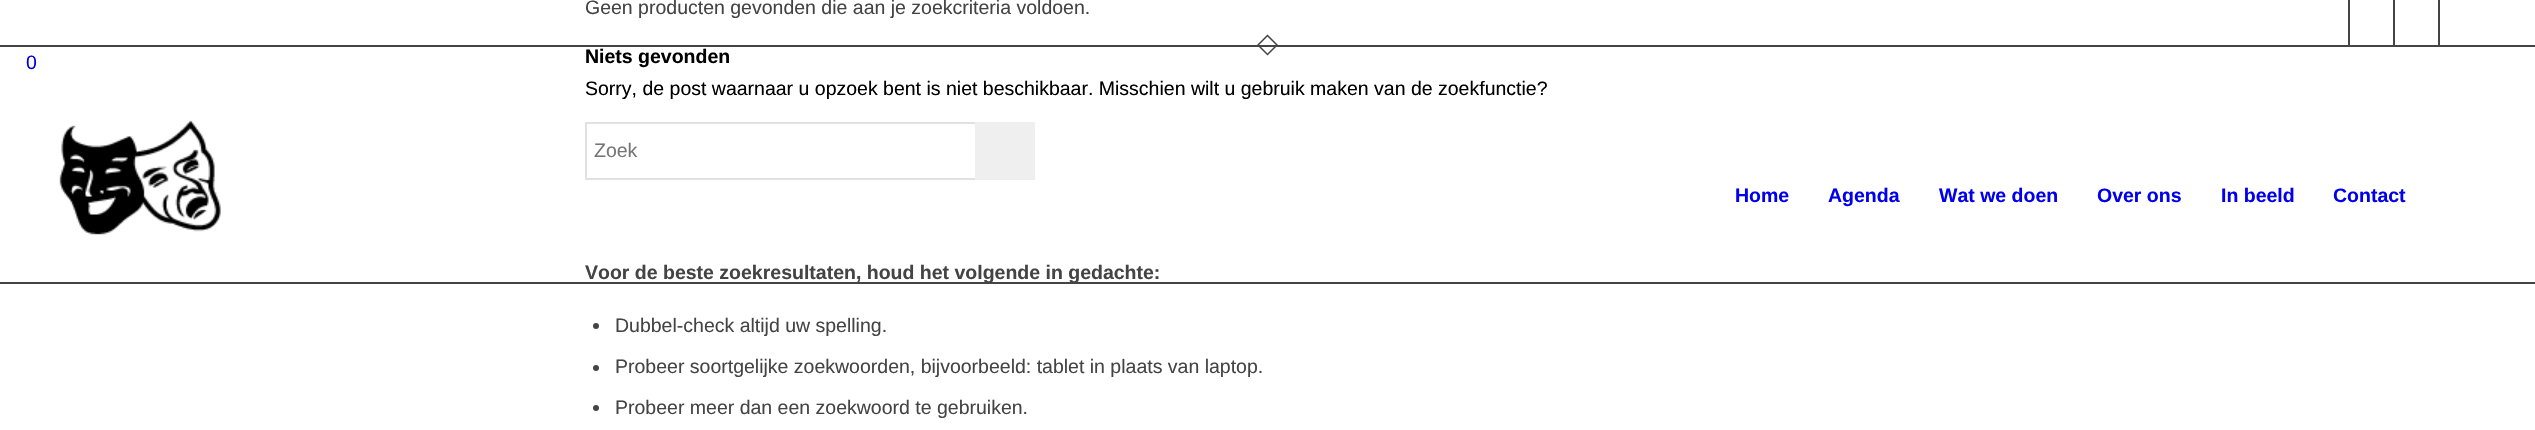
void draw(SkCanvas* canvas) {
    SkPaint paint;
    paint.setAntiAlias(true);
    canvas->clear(0xFFFFFFFF);
    SkFont font1(fontMgr->matchFamilyStyle("Liberation Sans", SkFontStyle::Normal()), 19.5f);
    font1.setSubpixel(true);
    paint.setColor(0xFF444444);
    canvas->drawString("Geen producten gevonden die aan je zoekcriteria voldoen.", 585, 14, font1, paint);
    SkFont font2(fontMgr->matchFamilyStyle("Liberation Sans", SkFontStyle::Bold()), 19.5f);
    font2.setSubpixel(true);
    paint.setColor(0xFF000000);
    canvas->drawString("Niets gevonden", 585, 63, font2, paint);
    canvas->drawString("Sorry, de post waarnaar u opzoek bent is niet beschikbaar. Misschien wilt u gebruik maken van de zoekfunctie?", 585, 95, font1, paint);
    paint.setStyle(SkPaint::kStroke_Style);
    paint.setStrokeWidth(2);
    paint.setColor(0xFFE1E1E1);
    canvas->drawRect(SkRect::MakeXYWH(586, 123, 448, 56), paint);
    paint.setStyle(SkPaint::kFill_Style);
    paint.setColor(0xFF757575);
    canvas->drawString("Zoek", 594, 157, font1, paint);
    paint.setColor(0xFFEFEFEF);
    canvas->drawRect(SkRect::MakeXYWH(975, 122, 60, 58), paint);
    paint.setColor(0xFF444444);
    canvas->drawString("Voor de beste zoekresultaten, houd het volgende in gedachte:", 585, 279, font2, paint);
    canvas->drawCircle(596, 326, 3, paint);
    canvas->drawString("Dubbel-check altijd uw spelling.", 615, 332, font1, paint);
    canvas->drawCircle(596, 368, 3, paint);
    canvas->drawString("Probeer soortgelijke zoekwoorden, bijvoorbeeld: tablet in plaats van laptop.", 615, 373, font1, paint);
    canvas->drawCircle(596, 408, 3, paint);
    canvas->drawString("Probeer meer dan een zoekwoord te gebruiken.", 615, 414, font1, paint);
    canvas->drawRect(SkRect::MakeXYWH(2348, 0, 2, 45), paint);
    canvas->drawRect(SkRect::MakeXYWH(2393, 0, 2, 45), paint);
    canvas->drawRect(SkRect::MakeXYWH(2438, 0, 2, 45), paint);
    canvas->drawRect(SkRect::MakeXYWH(0, 45, 2535, 2), paint);
    canvas->drawRect(SkRect::MakeXYWH(0, 282, 2535, 2), paint);
    paint.setStyle(SkPaint::kStroke_Style);
    paint.setStrokeWidth(1.5f);
    canvas->drawPath(SkPathBuilder().moveTo(1267.5f, 35.5f).lineTo(1277, 45).lineTo(1267.5f, 54.5f).lineTo(1258, 45).close().detach(), paint);
    paint.setStyle(SkPaint::kFill_Style);
    paint.setColor(0xFF0000EE);
    canvas->drawString("0", 26, 69, font1, paint);
    canvas->drawImageRect(SkImages::DeferredFromEncodedData(SkData::MakeFromFileName("img1.png")), SkRect::MakeXYWH(59, 120, 162, 115), SkSamplingOptions());
    canvas->drawString("Home", 1735, 202, font2, paint);
    canvas->drawString("Agenda", 1828, 202, font2, paint);
    canvas->drawString("Wat we doen", 1939, 202, font2, paint);
    canvas->drawString("Over ons", 2097, 202, font2, paint);
    canvas->drawString("In beeld", 2221, 202, font2, paint);
    canvas->drawString("Contact", 2333, 202, font2, paint);
}
